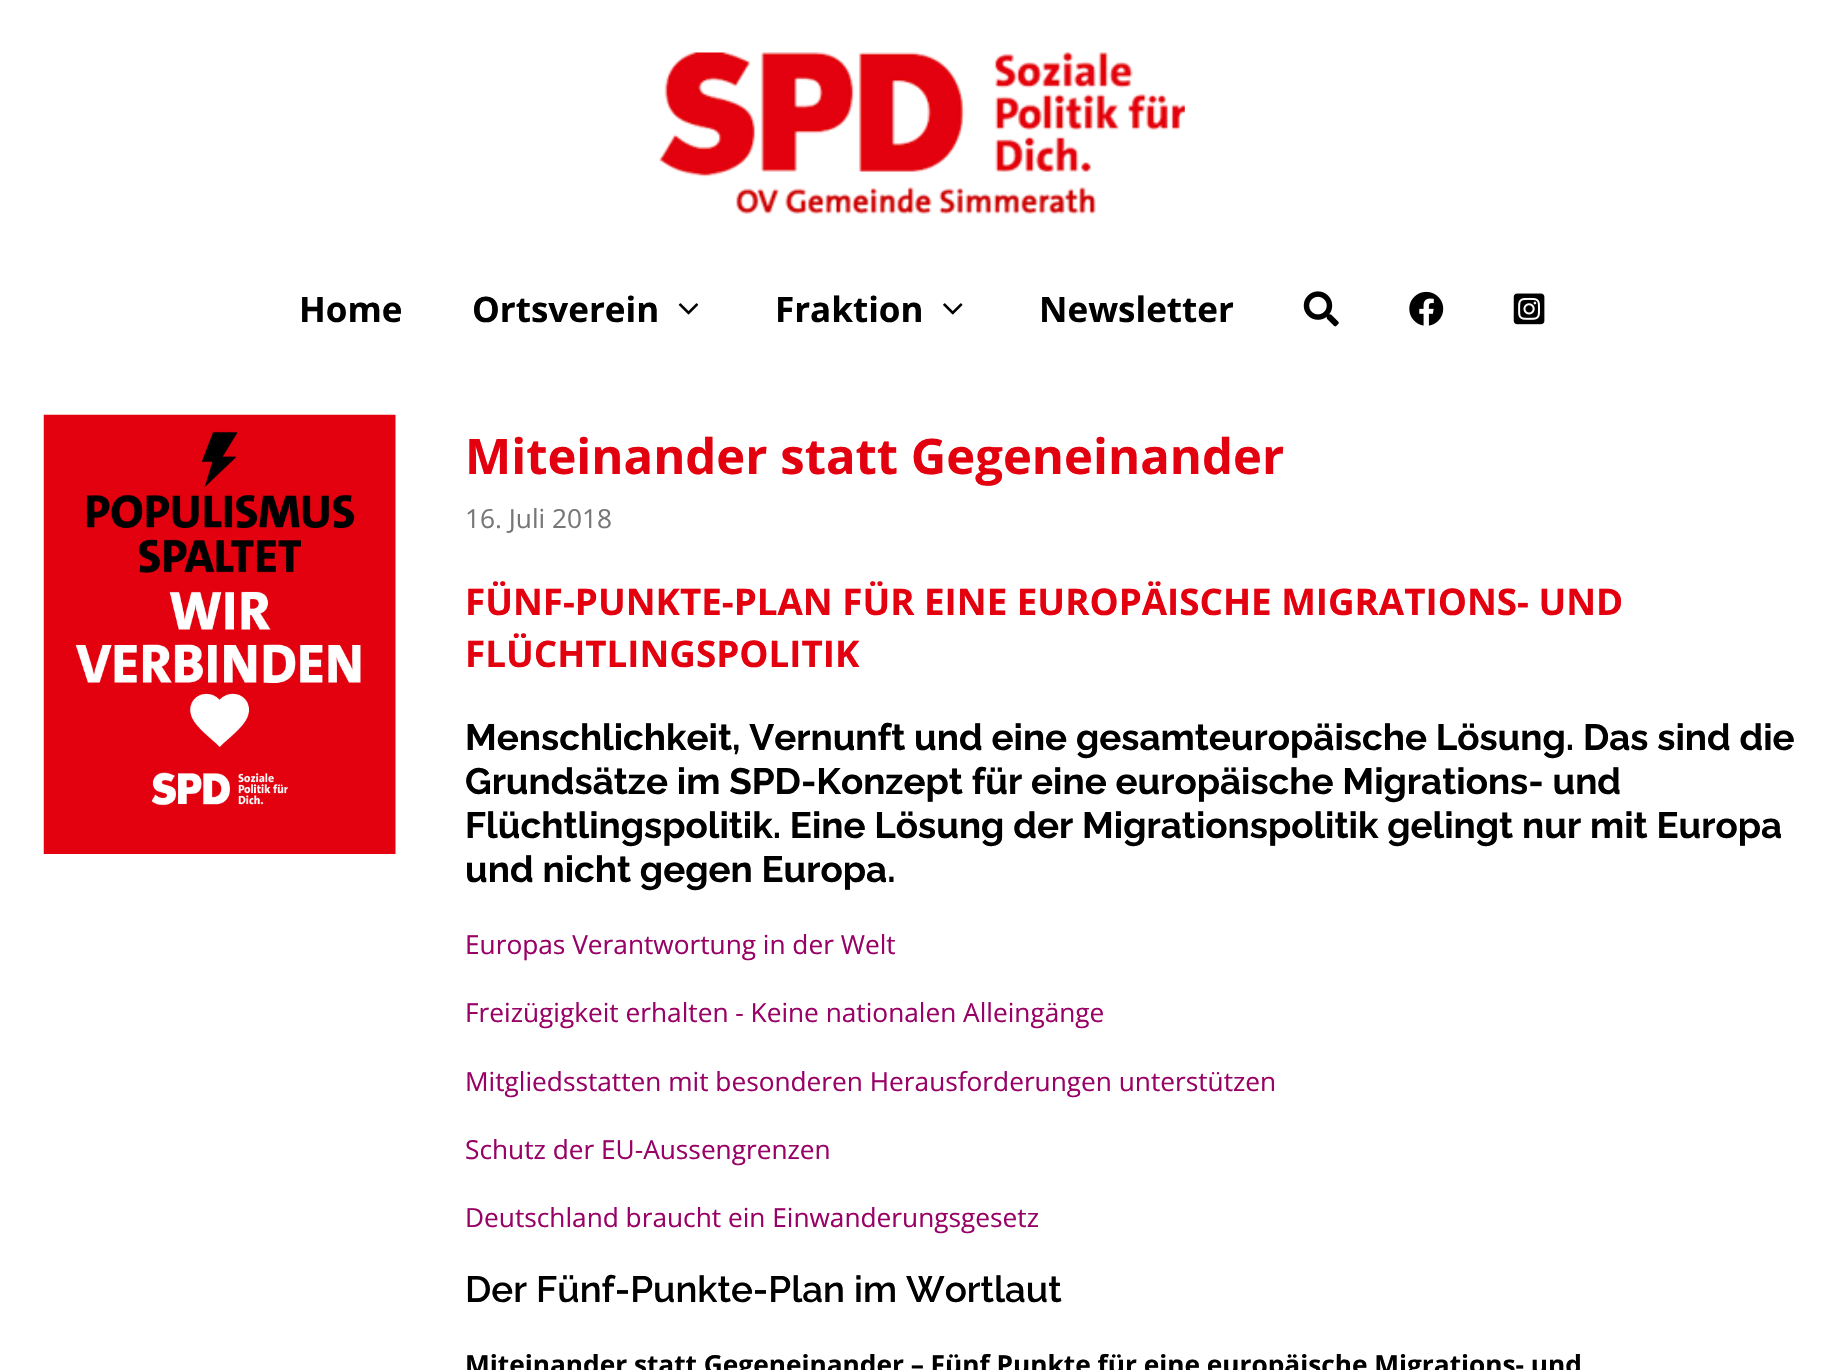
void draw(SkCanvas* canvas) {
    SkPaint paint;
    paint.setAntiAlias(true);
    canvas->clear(0xFFFFFFFF);
    canvas->drawImageRect(SkImages::DeferredFromEncodedData(SkData::MakeFromFileName("img1.png")), SkRect::MakeXYWH(659, 52, 526, 162), SkSamplingOptions());
    SkFont font1(fontMgr->matchFamilyStyle("Open Sans", SkFontStyle::Bold()), 35);
    font1.setSubpixel(true);
    paint.setColor(0xFF000000);
    canvas->drawString("Home", 299, 322, font1, paint);
    canvas->drawString("Ortsverein", 472, 322, font1, paint);
    canvas->drawImageRect(SkImages::DeferredFromEncodedData(SkData::MakeFromFileName("img2.png")), SkRect::MakeXYWH(678, 303, 21, 12), SkSamplingOptions());
    canvas->drawString("Fraktion", 775, 322, font1, paint);
    canvas->drawImageRect(SkImages::DeferredFromEncodedData(SkData::MakeFromFileName("img3.png")), SkRect::MakeXYWH(943, 303, 20, 12), SkSamplingOptions());
    canvas->drawString("Newsletter", 1039, 322, font1, paint);
    canvas->drawImageRect(SkImages::DeferredFromEncodedData(SkData::MakeFromFileName("img4.png")), SkRect::MakeXYWH(1303, 291, 36, 36), SkSamplingOptions());
    canvas->drawImageRect(SkImages::DeferredFromEncodedData(SkData::MakeFromFileName("img5.png")), SkRect::MakeXYWH(1409, 291, 35, 35), SkSamplingOptions());
    canvas->drawImageRect(SkImages::DeferredFromEncodedData(SkData::MakeFromFileName("img6.png")), SkRect::MakeXYWH(1513, 293, 32, 32), SkSamplingOptions());
    canvas->drawImageRect(SkImages::DeferredFromEncodedData(SkData::MakeFromFileName("img7.png")), SkRect::MakeXYWH(43, 414, 353, 440), SkSamplingOptions());
    SkFont font2(fontMgr->matchFamilyStyle("Open Sans", SkFontStyle::Bold()), 49);
    font2.setSubpixel(true);
    paint.setColor(0xFFE3000F);
    canvas->drawString("Miteinander statt Gegeneinander", 465, 474, font2, paint);
    SkFont font3(fontMgr->matchFamilyStyle("Open Sans", SkFontStyle::Normal()), 26.25f);
    font3.setSubpixel(true);
    paint.setColor(0xFF777777);
    canvas->drawString("16. Juli 2018", 465, 528, font3, paint);
    SkFont font4(fontMgr->matchFamilyStyle("Open Sans", SkFontStyle::Bold()), 36.75f);
    font4.setSubpixel(true);
    paint.setColor(0xFFE3000F);
    canvas->drawString("FÜNF-PUNKTE-PLAN FÜR EINE EUROPÄISCHE MIGRATIONS- UND", 465, 615, font4, paint);
    canvas->drawString("FLÜCHTLINGSPOLITIK", 465, 667, font4, paint);
    SkFont font5(fontMgr->matchFamilyStyle("Raleway", SkFontStyle::Bold()), 36.75f);
    font5.setSubpixel(true);
    paint.setColor(0xFF000000);
    canvas->drawString("Menschlichkeit, Vernunft und eine gesamteuropäische Lösung. Das sind die", 465, 750, font5, paint);
    canvas->drawString("Grundsätze im SPD-Konzept für eine europäische Migrations- und", 465, 794, font5, paint);
    canvas->drawString("Flüchtlingspolitik. Eine Lösung der Migrationspolitik gelingt nur mit Europa", 465, 838, font5, paint);
    canvas->drawString("und nicht gegen Europa.", 465, 882, font5, paint);
    paint.setColor(0xFF980267);
    canvas->drawString("Europas Verantwortung in der Welt", 465, 954, font3, paint);
    canvas->drawString("Freizügigkeit erhalten - Keine nationalen Alleingänge", 465, 1022, font3, paint);
    canvas->drawString("Mitgliedsstatten mit besonderen Herausforderungen unterstützen", 465, 1091, font3, paint);
    canvas->drawString("Schutz der EU-Aussengrenzen", 465, 1159, font3, paint);
    canvas->drawString("Deutschland braucht ein Einwanderungsgesetz", 465, 1227, font3, paint);
    SkFont font6(fontMgr->matchFamilyStyle("Raleway", SkFontStyle(600, SkFontStyle::kNormal_Width, SkFontStyle::kUpright_Slant)), 36.75f);
    font6.setSubpixel(true);
    paint.setColor(0xFF000000);
    canvas->drawString("Der Fünf-Punkte-Plan im Wortlaut", 465, 1302, font6, paint);
    SkFont font7(fontMgr->matchFamilyStyle("Open Sans", SkFontStyle::Bold()), 26.25f);
    font7.setSubpixel(true);
    canvas->drawString("Miteinander statt Gegeneinander – Fünf Punkte für eine europäische Migrations- und", 465, 1374, font7, paint);
}
